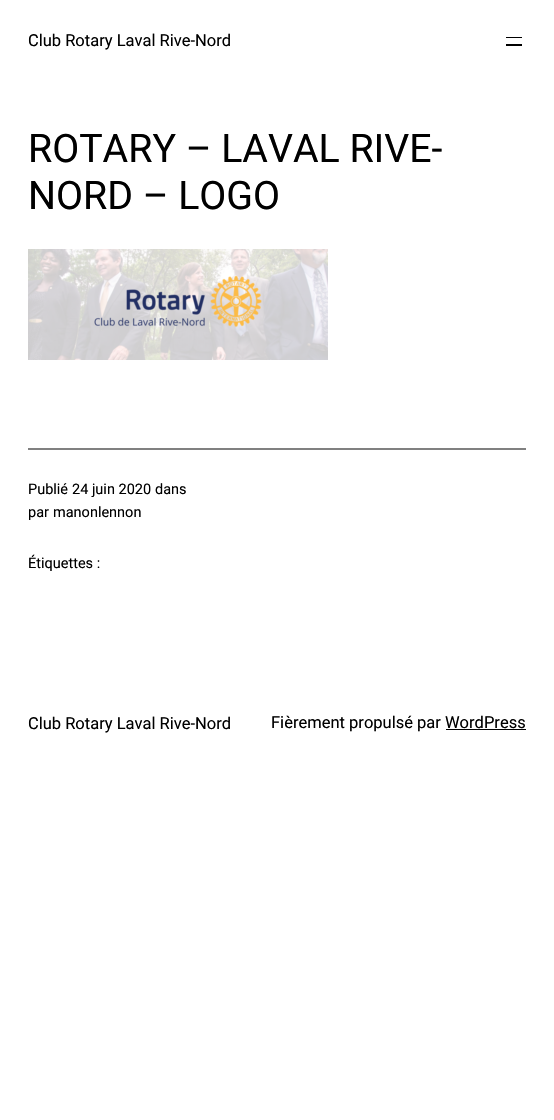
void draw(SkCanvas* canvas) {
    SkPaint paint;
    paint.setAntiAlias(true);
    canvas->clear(0xFFFFFFFF);
    SkFont font1(fontMgr->matchFamilyStyle("Roboto", SkFontStyle::Normal()), 16.5f);
    font1.setSubpixel(true);
    paint.setColor(0xFF000000);
    canvas->drawString("Club Rotary Laval Rive-Nord", 28, 46, font1, paint);
    canvas->drawRect(SkRect::MakeXYWH(506, 37, 16, 1), paint);
    canvas->drawRect(SkRect::MakeXYWH(506, 44, 16, 2), paint);
    SkFont font2(fontMgr->matchFamilyStyle("Roboto", SkFontStyle::Normal()), 39.25f);
    font2.setSubpixel(true);
    canvas->drawString("ROTARY – LAVAL RIVE-", 28, 162, font2, paint);
    canvas->drawString("NORD – LOGO", 28, 209, font2, paint);
    canvas->drawImageRect(SkImages::DeferredFromEncodedData(SkData::MakeFromFileName("img1.png")), SkRect::MakeXYWH(28, 249, 300, 111), SkSamplingOptions());
    paint.setColor(0xFF808080);
    canvas->drawRect(SkRect::MakeXYWH(28, 448, 498, 2), paint);
    SkFont font3(fontMgr->matchFamilyStyle("Roboto", SkFontStyle::Normal()), 14.5f);
    font3.setSubpixel(true);
    paint.setColor(0xFF000000);
    canvas->drawString("Publié", 28, 494, font3, paint);
    canvas->drawString("24 juin 2020", 72, 494, font3, paint);
    canvas->drawString("dans", 155, 494, font3, paint);
    canvas->drawString("par", 28, 517, font3, paint);
    canvas->drawString("manonlennon", 53, 517, font3, paint);
    canvas->drawString("Étiquettes :", 28, 568, font3, paint);
    canvas->drawString("Club Rotary Laval Rive-Nord", 28, 729, font1, paint);
    canvas->drawString("Fièrement propulsé par WordPress", 271, 728, font1, paint);
    canvas->drawRect(SkRect::MakeXYWH(446, 729, 80, 1), paint);
}
